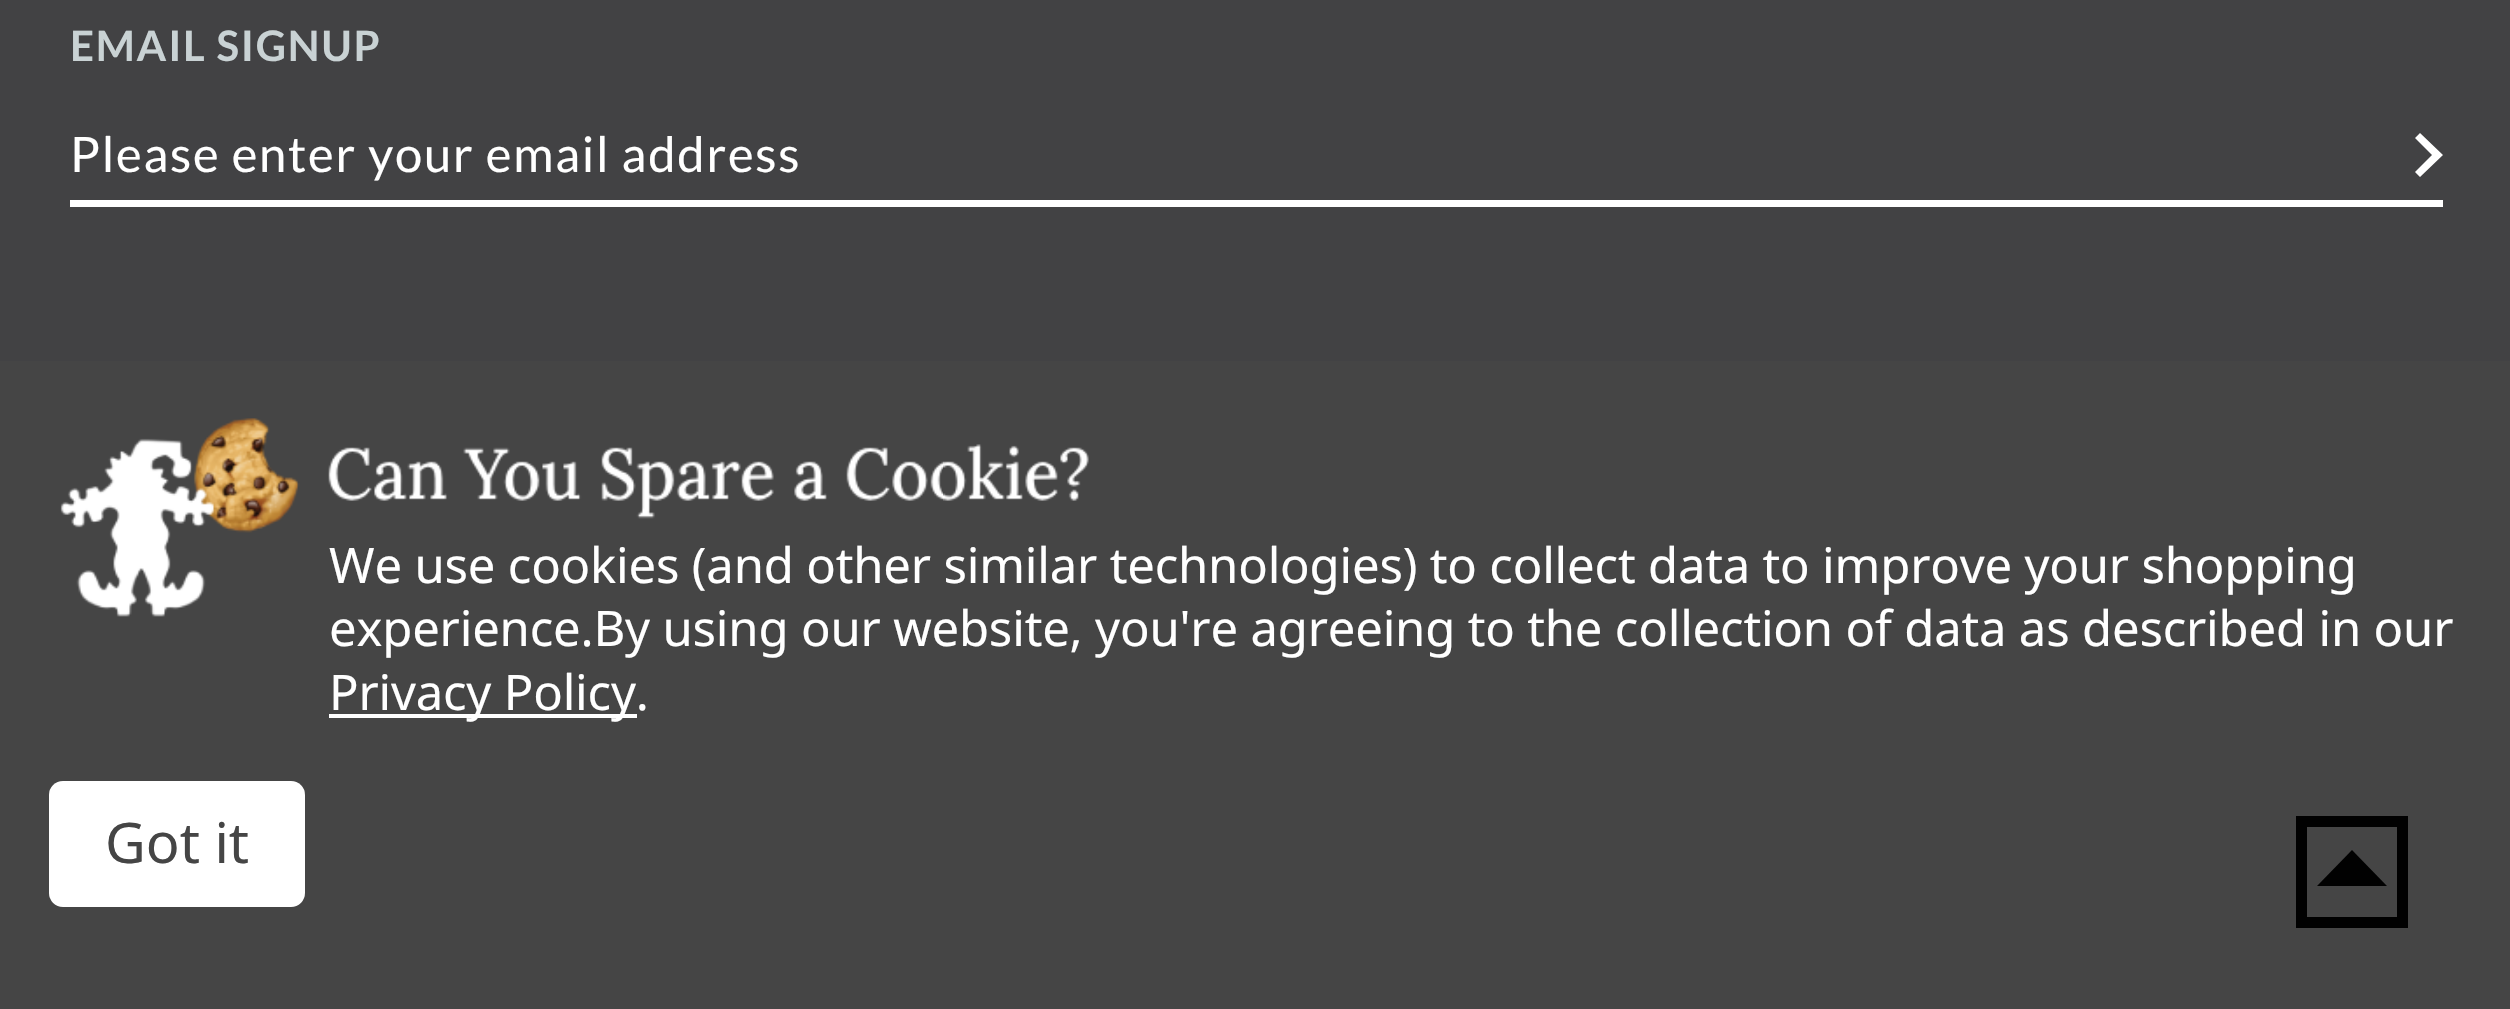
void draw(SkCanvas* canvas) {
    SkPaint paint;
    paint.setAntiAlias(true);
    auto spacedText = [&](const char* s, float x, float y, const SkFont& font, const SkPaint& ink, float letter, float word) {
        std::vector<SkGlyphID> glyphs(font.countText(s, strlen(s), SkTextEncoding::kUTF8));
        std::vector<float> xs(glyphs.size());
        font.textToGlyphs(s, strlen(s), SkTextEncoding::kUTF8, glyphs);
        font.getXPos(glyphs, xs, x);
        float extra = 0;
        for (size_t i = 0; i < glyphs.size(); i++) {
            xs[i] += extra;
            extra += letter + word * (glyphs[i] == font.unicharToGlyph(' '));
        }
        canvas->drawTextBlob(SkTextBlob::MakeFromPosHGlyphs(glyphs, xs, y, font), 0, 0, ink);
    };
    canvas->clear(0xFF424244);
    SkFont font1(fontMgr->matchFamilyStyle("Lato", SkFontStyle::Bold()), 42);
    font1.setSubpixel(true);
    paint.setColor(0xFFC9D2D4);
    spacedText("EMAIL SIGNUP", 70, 61, font1, paint, 1.75f, 0);
    paint.setColor(0xFFFFFFFF);
    canvas->drawRect(SkRect::MakeXYWH(70, 200, 2373, 7), paint);
    SkFont font2(fontMgr->matchFamilyStyle("Lato", SkFontStyle::Normal()), 49);
    font2.setSubpixel(true);
    spacedText("Please enter your email address", 70, 172, font2, paint, 1.75f, 0);
    canvas->drawPath(SkPathBuilder().moveTo(2420, 133).lineTo(2415, 138).lineTo(2432, 155).lineTo(2415, 172).lineTo(2420, 177).lineTo(2443, 155).close().detach(), paint);
    paint.setColor(0xFF454545);
    canvas->drawRect(SkRect::MakeXYWH(0, 361, 2510, 648), paint);
    canvas->drawImageRect(SkImages::DeferredFromEncodedData(SkData::MakeFromFileName("img1.png")), SkRect::MakeXYWH(60, 418, 1029, 199), SkSamplingOptions());
    SkFont font3(fontMgr->matchFamilyStyle("Noto Sans", SkFontStyle::Normal()), 49);
    font3.setSubpixel(true);
    paint.setColor(0xFFFFFFFF);
    spacedText("We use cookies (and other similar technologies) to collect data to improve your shopping", 329, 583, font3, paint, -0.18f, 0);
    spacedText("experience.By using our website, you're agreeing to the collection of data as described in our", 329, 646, font3, paint, -0.18f, 0);
    canvas->drawRect(SkRect::MakeXYWH(329, 714, 308, 4), paint);
    spacedText("Privacy Policy.", 329, 710, font3, paint, -0.18f, 0);
    canvas->drawRoundRect(SkRect::MakeXYWH(49, 781, 256, 126), 14, 14, paint);
    SkFont font4(fontMgr->matchFamilyStyle("Noto Sans", SkFontStyle::Normal()), 56);
    font4.setSubpixel(true);
    paint.setColor(0xFF454545);
    canvas->drawString("Got it", 105, 863, font4, paint);
    paint.setStyle(SkPaint::kStroke_Style);
    paint.setStrokeWidth(11);
    paint.setColor(0xFF010101);
    canvas->drawRect(SkRect::MakeXYWH(2301.5f, 821.5f, 101, 101), paint);
    paint.setStyle(SkPaint::kFill_Style);
    canvas->drawPath(SkPathBuilder().moveTo(2387, 886).lineTo(2317, 886).lineTo(2352, 850).close().detach(), paint);
}
